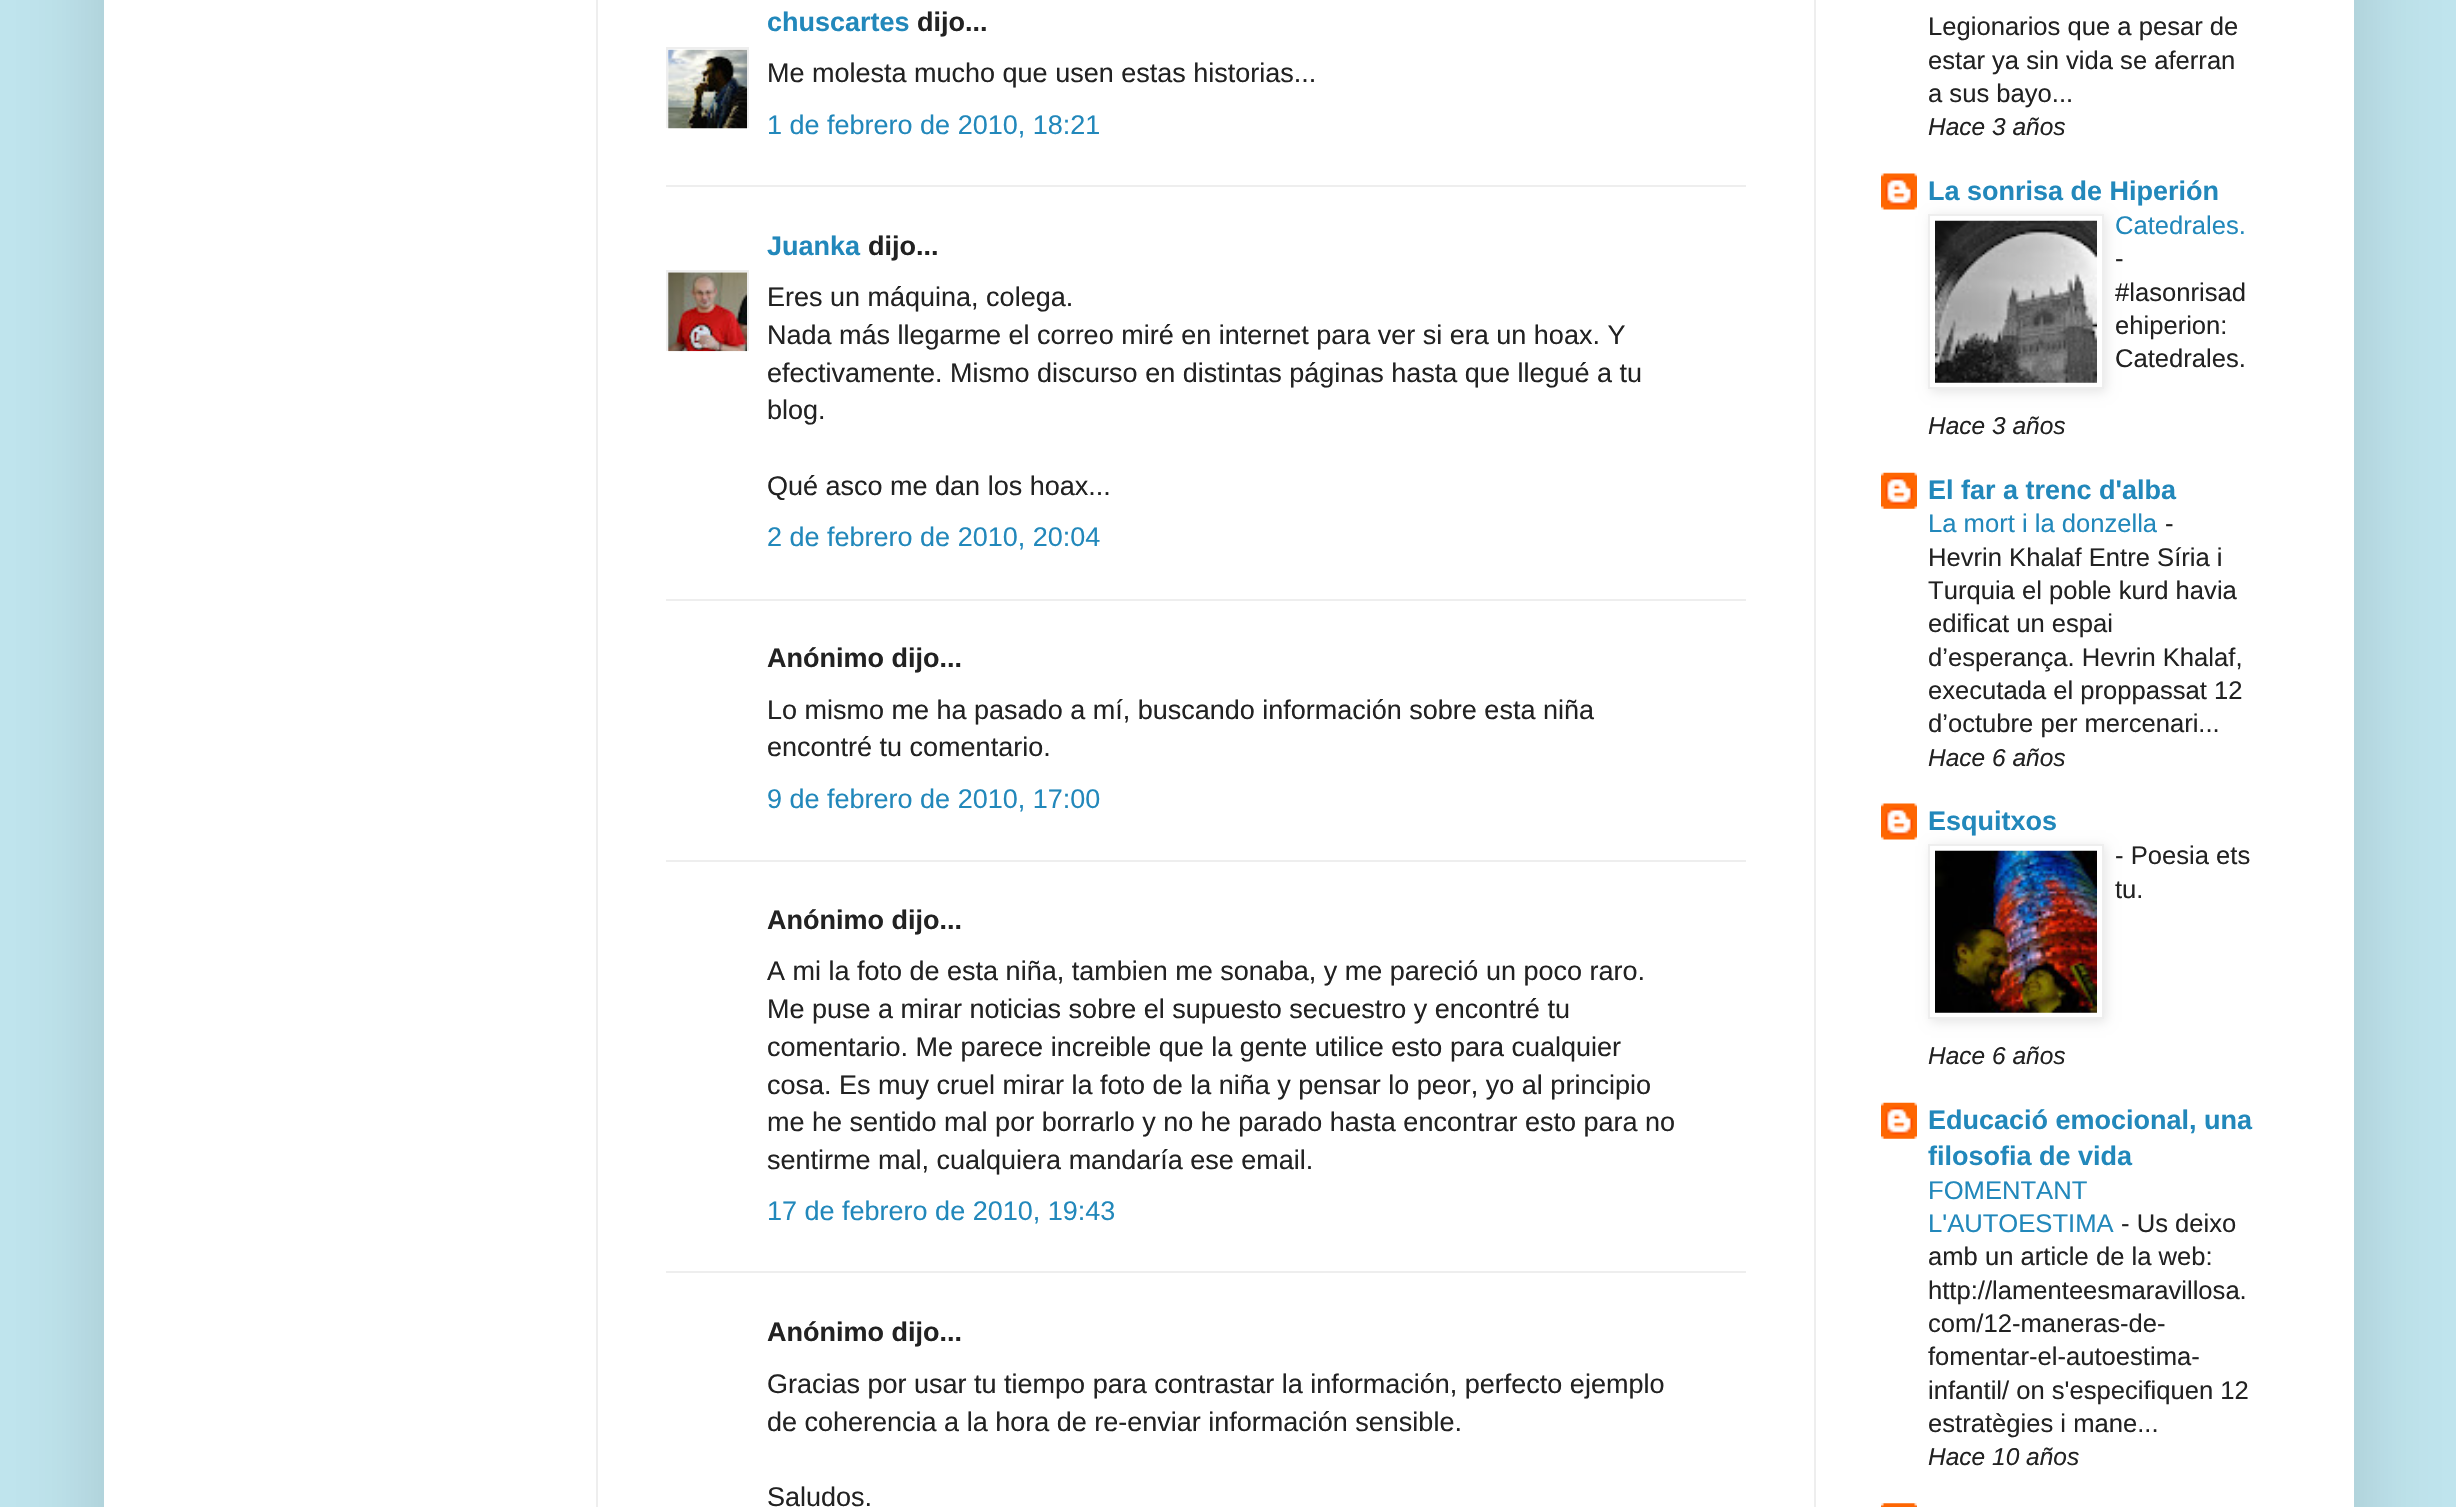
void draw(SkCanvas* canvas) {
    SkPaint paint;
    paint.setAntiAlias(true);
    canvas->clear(0xFFC0E5EE);
    paint.setColor(0x26000000);
    paint.setMaskFilter(SkMaskFilter::MakeBlur(kNormal_SkBlurStyle, 45));
    canvas->drawRect(SkRect::MakeXYWH(104, -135, 2250, 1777), paint);
    paint.setMaskFilter(nullptr);
    paint.setColor(0xFFFFFFFF);
    canvas->drawRect(SkRect::MakeXYWH(104, 0, 2250, 1507), paint);
    paint.setColor(0xFFEEEEEE);
    canvas->drawRect(SkRect::MakeXYWH(596, 0, 2, 1507), paint);
    canvas->drawRect(SkRect::MakeXYWH(1814, 0, 2, 1507), paint);
    SkFont font1(fontMgr->matchFamilyStyle("Liberation Sans", SkFontStyle::Bold()), 27);
    font1.setSubpixel(true);
    paint.setColor(0xFF2288BB);
    canvas->drawString("chuscartes", 767, 31, font1, paint);
    paint.setColor(0xFF222222);
    canvas->drawString("dijo...", 917, 31, font1, paint);
    canvas->save();
    canvas->clipRect(SkRect::MakeXYWH(666, 47, 83, 81));
    paint.setStyle(SkPaint::kStroke_Style);
    paint.setStrokeWidth(2);
    paint.setColor(0xFFEEEEEE);
    canvas->drawRect(SkRect::MakeXYWH(667, 48, 81, 82), paint);
    canvas->restore();
    canvas->drawImageRect(SkImages::DeferredFromEncodedData(SkData::MakeFromFileName("img1.png")), SkRect::MakeXYWH(668, 49, 79, 80), SkSamplingOptions());
    SkFont font2(fontMgr->matchFamilyStyle("Liberation Sans", SkFontStyle::Normal()), 27);
    font2.setSubpixel(true);
    paint.setStyle(SkPaint::kFill_Style);
    paint.setColor(0xFF222222);
    canvas->drawString("Me molesta mucho que usen estas historias...", 767, 82, font2, paint);
    paint.setColor(0xFF2288BB);
    canvas->drawString("1 de febrero de 2010, 18:21", 767, 134, font2, paint);
    paint.setColor(0xFFEEEEEE);
    canvas->drawRect(SkRect::MakeXYWH(666, 185, 1080, 2), paint);
    paint.setColor(0xFF2288BB);
    canvas->drawString("Juanka", 767, 255, font1, paint);
    paint.setColor(0xFF222222);
    canvas->drawString("dijo...", 868, 255, font1, paint);
    canvas->save();
    canvas->clipRect(SkRect::MakeXYWH(666, 270, 83, 81));
    paint.setStyle(SkPaint::kStroke_Style);
    paint.setColor(0xFFEEEEEE);
    canvas->drawRect(SkRect::MakeXYWH(667, 271, 81, 81), paint);
    canvas->restore();
    canvas->drawImageRect(SkImages::DeferredFromEncodedData(SkData::MakeFromFileName("img2.png")), SkRect::MakeXYWH(668, 272, 79, 80), SkSamplingOptions());
    paint.setStyle(SkPaint::kFill_Style);
    paint.setColor(0xFF222222);
    canvas->drawString("Eres un máquina, colega.", 767, 306, font2, paint);
    canvas->drawString("Nada más llegarme el correo miré en internet para ver si era un hoax. Y", 767, 344, font2, paint);
    canvas->drawString("efectivamente. Mismo discurso en distintas páginas hasta que llegué a tu", 767, 382, font2, paint);
    canvas->drawString("blog.", 767, 419, font2, paint);
    canvas->drawString("Qué asco me dan los hoax...", 767, 495, font2, paint);
    paint.setColor(0xFF2288BB);
    canvas->drawString("2 de febrero de 2010, 20:04", 767, 546, font2, paint);
    paint.setColor(0xFFEEEEEE);
    canvas->drawRect(SkRect::MakeXYWH(666, 599, 1080, 2), paint);
    paint.setColor(0xFF222222);
    canvas->drawString("Anónimo dijo...", 767, 667, font1, paint);
    canvas->drawString("Lo mismo me ha pasado a mí, buscando información sobre esta niña", 767, 719, font2, paint);
    canvas->drawString("encontré tu comentario.", 767, 756, font2, paint);
    paint.setColor(0xFF2288BB);
    canvas->drawString("9 de febrero de 2010, 17:00", 767, 808, font2, paint);
    paint.setColor(0xFFEEEEEE);
    canvas->drawRect(SkRect::MakeXYWH(666, 860, 1080, 2), paint);
    paint.setColor(0xFF222222);
    canvas->drawString("Anónimo dijo...", 767, 929, font1, paint);
    canvas->drawString("A mi la foto de esta niña, tambien me sonaba, y me pareció un poco raro.", 767, 980, font2, paint);
    canvas->drawString("Me puse a mirar noticias sobre el supuesto secuestro y encontré tu", 767, 1018, font2, paint);
    canvas->drawString("comentario. Me parece increible que la gente utilice esto para cualquier", 767, 1056, font2, paint);
    canvas->drawString("cosa. Es muy cruel mirar la foto de la niña y pensar lo peor, yo al principio", 767, 1094, font2, paint);
    canvas->drawString("me he sentido mal por borrarlo y no he parado hasta encontrar esto para no", 767, 1131, font2, paint);
    canvas->drawString("sentirme mal, cualquiera mandaría ese email.", 767, 1169, font2, paint);
    paint.setColor(0xFF2288BB);
    canvas->drawString("17 de febrero de 2010, 19:43", 767, 1220, font2, paint);
    paint.setColor(0xFFEEEEEE);
    canvas->drawRect(SkRect::MakeXYWH(666, 1271, 1080, 2), paint);
    paint.setColor(0xFF222222);
    canvas->drawString("Anónimo dijo...", 767, 1341, font1, paint);
    canvas->drawString("Gracias por usar tu tiempo para contrastar la información, perfecto ejemplo", 767, 1393, font2, paint);
    canvas->drawString("de coherencia a la hora de re-enviar información sensible.", 767, 1431, font2, paint);
    canvas->drawString("Saludos.", 767, 1506, font2, paint);
    SkFont font3(fontMgr->matchFamilyStyle("Liberation Sans", SkFontStyle::Normal()), 25.6f);
    font3.setSubpixel(true);
    canvas->drawString("Legionarios que a pesar de", 1928, 35, font3, paint);
    canvas->drawString("estar ya sin vida se aferran", 1928, 69, font3, paint);
    canvas->drawString("a sus bayo...", 1928, 102, font3, paint);
    SkFont font4(fontMgr->matchFamilyStyle("Liberation Sans", SkFontStyle::Italic()), 24.5f);
    font4.setSubpixel(true);
    canvas->drawString("Hace 3 años", 1928, 135, font4, paint);
    canvas->drawImageRect(SkImages::DeferredFromEncodedData(SkData::MakeFromFileName("img3.png")), SkRect::MakeXYWH(1881, 173, 36, 37), SkSamplingOptions());
    paint.setColor(0xFF2288BB);
    canvas->drawString("La sonrisa de Hiperión", 1928, 200, font1, paint);
    paint.setColor(0x1A000000);
    paint.setMaskFilter(SkMaskFilter::MakeBlur(kNormal_SkBlurStyle, 5.5f));
    canvas->drawRect(SkRect::MakeXYWH(1931, 216, 175, 176), paint);
    paint.setMaskFilter(nullptr);
    paint.setColor(0xFFFFFFFF);
    canvas->drawRect(SkRect::MakeXYWH(1929, 215, 174, 173), paint);
    paint.setStyle(SkPaint::kStroke_Style);
    paint.setColor(0xFFEEEEEE);
    canvas->drawRect(SkRect::MakeXYWH(1929, 215, 174, 173), paint);
    canvas->drawImageRect(SkImages::DeferredFromEncodedData(SkData::MakeFromFileName("img4.png")), SkRect::MakeXYWH(1935, 220, 162, 163), SkSamplingOptions());
    paint.setStyle(SkPaint::kFill_Style);
    paint.setColor(0xFF2288BB);
    canvas->drawString("Catedrales.", 2115, 234, font3, paint);
    paint.setColor(0xFF222222);
    canvas->drawString("-", 2115, 267, font3, paint);
    canvas->drawString("#lasonrisad", 2115, 301, font3, paint);
    canvas->drawString("ehiperion:", 2115, 334, font3, paint);
    canvas->drawString("Catedrales.", 2115, 367, font3, paint);
    canvas->drawString("Hace 3 años", 1928, 434, font4, paint);
    canvas->drawImageRect(SkImages::DeferredFromEncodedData(SkData::MakeFromFileName("img5.png")), SkRect::MakeXYWH(1881, 472, 36, 37), SkSamplingOptions());
    paint.setColor(0xFF2288BB);
    canvas->drawString("El far a trenc d'alba", 1928, 499, font1, paint);
    canvas->drawString("La mort i la donzella", 1928, 532, font3, paint);
    paint.setColor(0xFF222222);
    canvas->drawString("-", 2165, 532, font3, paint);
    canvas->drawString("Hevrin Khalaf Entre Síria i", 1928, 566, font3, paint);
    canvas->drawString("Turquia el poble kurd havia", 1928, 599, font3, paint);
    canvas->drawString("edificat un espai", 1928, 632, font3, paint);
    canvas->drawString("d’esperança. Hevrin Khalaf,", 1928, 666, font3, paint);
    canvas->drawString("executada el proppassat 12", 1928, 699, font3, paint);
    canvas->drawString("d’octubre per mercenari...", 1928, 732, font3, paint);
    canvas->drawString("Hace 6 años", 1928, 766, font4, paint);
    canvas->drawImageRect(SkImages::DeferredFromEncodedData(SkData::MakeFromFileName("img3.png")), SkRect::MakeXYWH(1881, 803, 36, 37), SkSamplingOptions());
    paint.setColor(0xFF2288BB);
    canvas->drawString("Esquitxos", 1928, 830, font1, paint);
    paint.setColor(0x1A000000);
    paint.setMaskFilter(SkMaskFilter::MakeBlur(kNormal_SkBlurStyle, 5.5f));
    canvas->drawRect(SkRect::MakeXYWH(1931, 846, 175, 176), paint);
    paint.setMaskFilter(nullptr);
    paint.setColor(0xFFFFFFFF);
    canvas->drawRect(SkRect::MakeXYWH(1929, 845, 174, 173), paint);
    paint.setStyle(SkPaint::kStroke_Style);
    paint.setColor(0xFFEEEEEE);
    canvas->drawRect(SkRect::MakeXYWH(1929, 845, 174, 173), paint);
    canvas->drawImageRect(SkImages::DeferredFromEncodedData(SkData::MakeFromFileName("img6.png")), SkRect::MakeXYWH(1935, 850, 162, 163), SkSamplingOptions());
    paint.setStyle(SkPaint::kFill_Style);
    paint.setColor(0xFF222222);
    canvas->drawString("- Poesia ets", 2115, 864, font3, paint);
    canvas->drawString("tu.", 2115, 898, font3, paint);
    canvas->drawString("Hace 6 años", 1928, 1064, font4, paint);
    canvas->drawImageRect(SkImages::DeferredFromEncodedData(SkData::MakeFromFileName("img5.png")), SkRect::MakeXYWH(1881, 1102, 36, 37), SkSamplingOptions());
    paint.setColor(0xFF2288BB);
    canvas->drawString("Educació emocional, una", 1928, 1129, font1, paint);
    canvas->drawString("filosofia de vida", 1928, 1165, font1, paint);
    canvas->drawString("FOMENTANT", 1928, 1199, font3, paint);
    canvas->drawString("L'AUTOESTIMA", 1928, 1232, font3, paint);
    paint.setColor(0xFF222222);
    canvas->drawString("- Us deixo", 2121, 1232, font3, paint);
    canvas->drawString("amb un article de la web:", 1928, 1265, font3, paint);
    canvas->drawString("http://lamenteesmaravillosa.", 1928, 1299, font3, paint);
    canvas->drawString("com/12-maneras-de-", 1928, 1332, font3, paint);
    canvas->drawString("fomentar-el-autoestima-", 1928, 1365, font3, paint);
    canvas->drawString("infantil/ on s'especifiquen 12", 1928, 1399, font3, paint);
    canvas->drawString("estratègies i mane...", 1928, 1432, font3, paint);
    canvas->drawString("Hace 10 años", 1928, 1465, font4, paint);
    canvas->drawImageRect(SkImages::DeferredFromEncodedData(SkData::MakeFromFileName("img7.png")), SkRect::MakeXYWH(1881, 1503, 36, 4), SkSamplingOptions());
}
